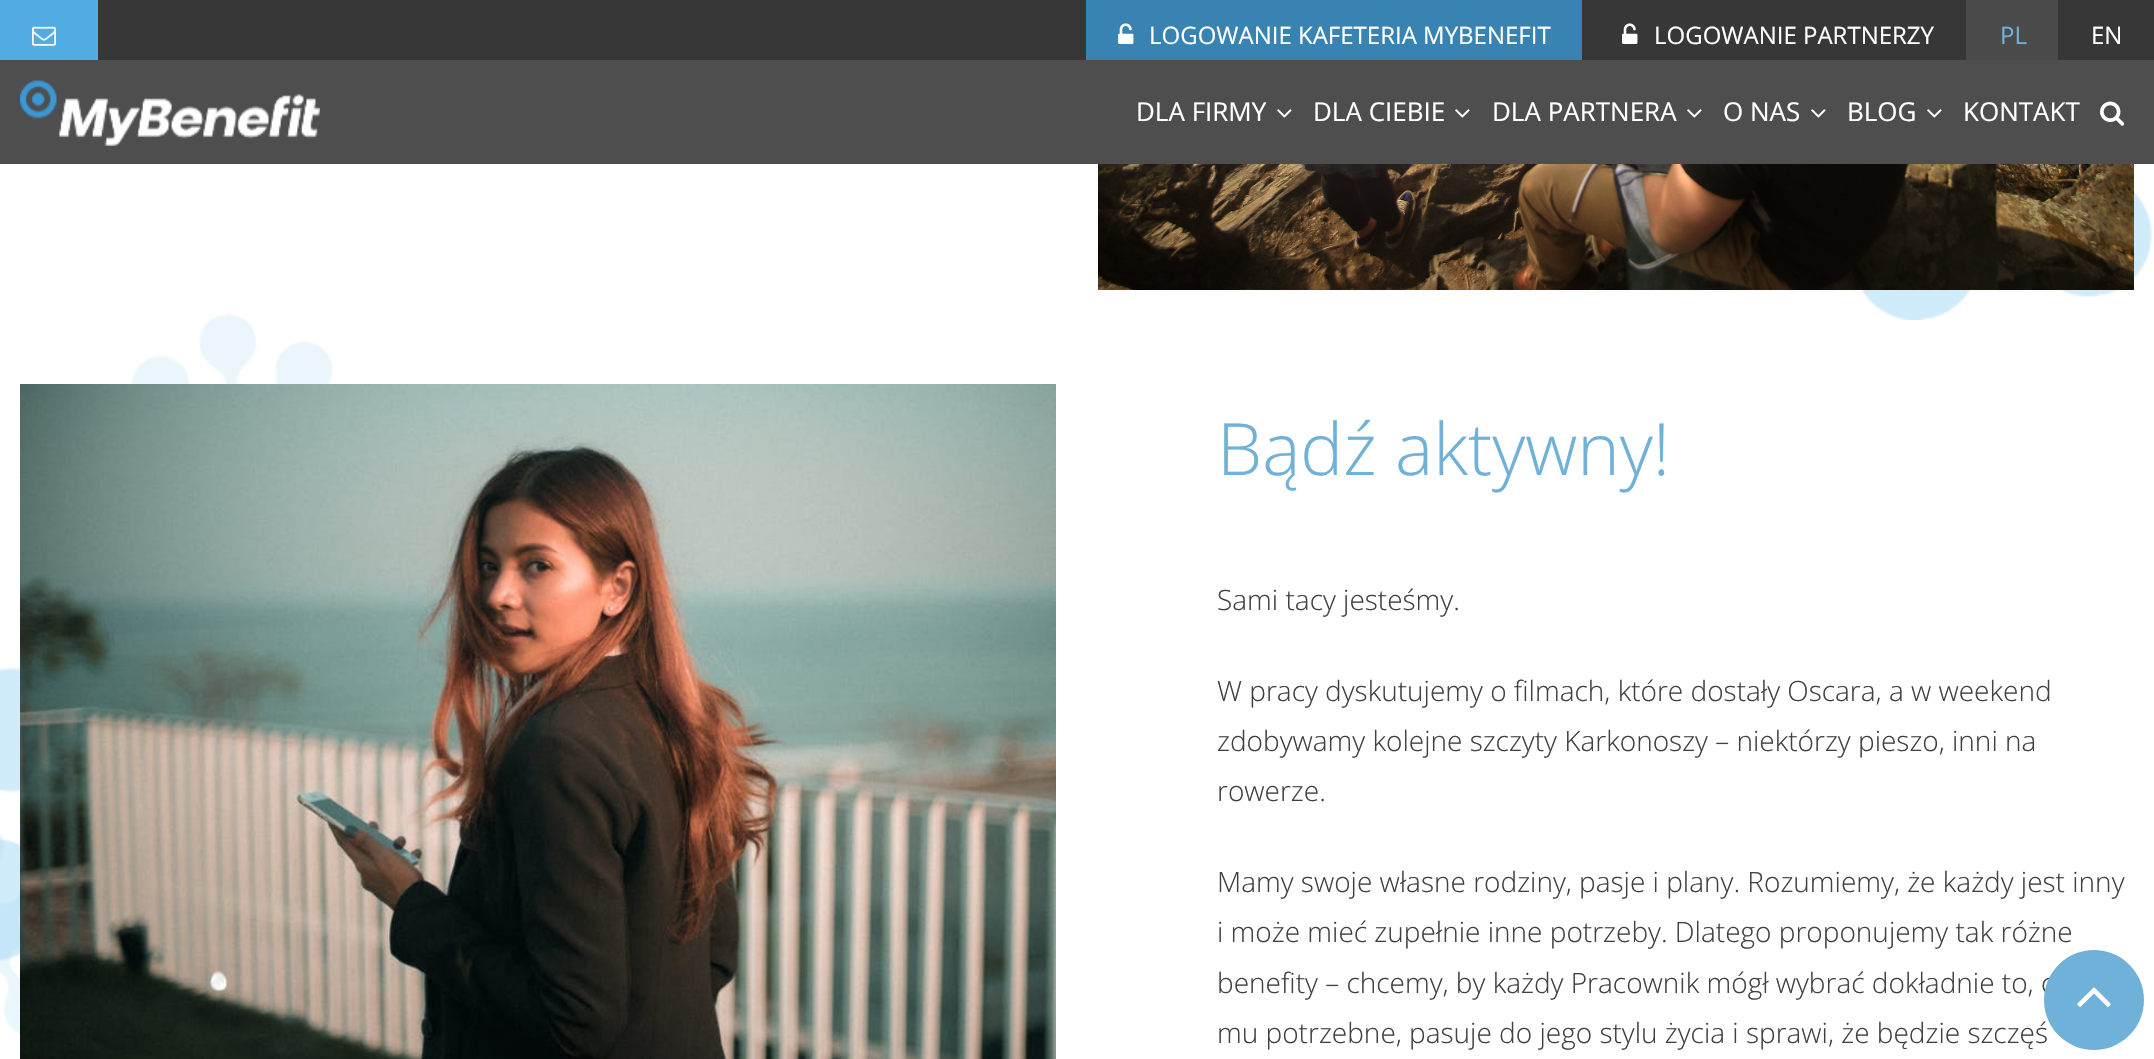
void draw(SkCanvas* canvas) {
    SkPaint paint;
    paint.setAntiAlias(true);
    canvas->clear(0xFFFFFFFF);
    paint.setColor(0xFF373737);
    canvas->drawRect(SkRect::MakeXYWH(98, 0, 2056, 60), paint);
    paint.setColor(0xFF52ACE4);
    canvas->drawRect(SkRect::MakeXYWH(0, 0, 98, 60), paint);
    canvas->drawImageRect(SkImages::DeferredFromEncodedData(SkData::MakeFromFileName("img1.png")), SkRect::MakeXYWH(32, 26, 24, 20), SkSamplingOptions());
    paint.setColor(0xFF3983B2);
    canvas->drawRect(SkRect::MakeXYWH(1086, 0, 496, 60), paint);
    canvas->drawImageRect(SkImages::DeferredFromEncodedData(SkData::MakeFromFileName("img2.png")), SkRect::MakeXYWH(1118, 23, 16, 21), SkSamplingOptions());
    SkFont font1(fontMgr->matchFamilyStyle("Open Sans", SkFontStyle::Normal()), 24);
    font1.setSubpixel(true);
    paint.setColor(0xFFFFFFFF);
    canvas->drawString("LOGOWANIE KAFETERIA MYBENEFIT", 1149, 44, font1, paint);
    canvas->drawImageRect(SkImages::DeferredFromEncodedData(SkData::MakeFromFileName("img3.png")), SkRect::MakeXYWH(1622, 23, 16, 21), SkSamplingOptions());
    canvas->drawString("LOGOWANIE PARTNERZY", 1654, 44, font1, paint);
    paint.setColor(0xFF4B4B4B);
    canvas->drawRect(SkRect::MakeXYWH(1966, 0, 92, 60), paint);
    paint.setColor(0xFF70B1D9);
    canvas->drawString("PL", 2000, 44, font1, paint);
    paint.setColor(0xFFFFFFFF);
    canvas->drawString("EN", 2091, 44, font1, paint);
    paint.setColor(0xFF4E4E4E);
    canvas->drawRect(SkRect::MakeXYWH(0, 60, 2154, 104), paint);
    canvas->drawImageRect(SkImages::DeferredFromEncodedData(SkData::MakeFromFileName("img4.png")), SkRect::MakeXYWH(20, 80, 300, 66), SkSamplingOptions());
    SkFont font2(fontMgr->matchFamilyStyle("Open Sans", SkFontStyle::Normal()), 26);
    font2.setSubpixel(true);
    paint.setColor(0xFFFFFFFF);
    canvas->drawString("DLA FIRMY", 1136, 121, font2, paint);
    canvas->drawImageRect(SkImages::DeferredFromEncodedData(SkData::MakeFromFileName("img5.png")), SkRect::MakeXYWH(1277, 109, 15, 9), SkSamplingOptions());
    canvas->drawString("DLA CIEBIE", 1313, 121, font2, paint);
    canvas->drawImageRect(SkImages::DeferredFromEncodedData(SkData::MakeFromFileName("img5.png")), SkRect::MakeXYWH(1455, 109, 15, 9), SkSamplingOptions());
    canvas->drawString("DLA PARTNERA", 1492, 121, font2, paint);
    canvas->drawImageRect(SkImages::DeferredFromEncodedData(SkData::MakeFromFileName("img5.png")), SkRect::MakeXYWH(1687, 109, 15, 9), SkSamplingOptions());
    canvas->drawString("O NAS", 1723, 121, font2, paint);
    canvas->drawImageRect(SkImages::DeferredFromEncodedData(SkData::MakeFromFileName("img5.png")), SkRect::MakeXYWH(1811, 109, 15, 9), SkSamplingOptions());
    canvas->drawString("BLOG", 1847, 121, font2, paint);
    canvas->drawImageRect(SkImages::DeferredFromEncodedData(SkData::MakeFromFileName("img5.png")), SkRect::MakeXYWH(1927, 109, 15, 9), SkSamplingOptions());
    canvas->drawString("KONTAKT", 1963, 121, font2, paint);
    canvas->drawImageRect(SkImages::DeferredFromEncodedData(SkData::MakeFromFileName("img6.png")), SkRect::MakeXYWH(2100, 101, 25, 25), SkSamplingOptions());
    canvas->drawImageRect(SkImages::DeferredFromEncodedData(SkData::MakeFromFileName("img8.png")), SkRect::MakeXYWH(1861, 190, 292, 130), SkSamplingOptions());
    canvas->drawImageRect(SkImages::DeferredFromEncodedData(SkData::MakeFromFileName("img7.png")), SkRect::MakeXYWH(1098, 164, 1036, 126), SkSamplingOptions());
    canvas->drawImageRect(SkImages::DeferredFromEncodedData(SkData::MakeFromFileName("img9.png")), SkRect::MakeXYWH(0, 314, 334, 721), SkSamplingOptions());
    canvas->drawImageRect(SkImages::DeferredFromEncodedData(SkData::MakeFromFileName("img10.png")), SkRect::MakeXYWH(20, 384, 1036, 675), SkSamplingOptions());
    SkFont font3(fontMgr->matchFamilyStyle("Open Sans", SkFontStyle(300, SkFontStyle::kNormal_Width, SkFontStyle::kUpright_Slant)), 72);
    font3.setSubpixel(true);
    paint.setColor(0xFF70B1D9);
    canvas->drawString("Bądź aktywny!", 1217, 475, font3, paint);
    SkFont font4(fontMgr->matchFamilyStyle("Open Sans", SkFontStyle(300, SkFontStyle::kNormal_Width, SkFontStyle::kUpright_Slant)), 28);
    font4.setSubpixel(true);
    paint.setColor(0xFF404040);
    canvas->drawString("Sami tacy jesteśmy.", 1217, 610, font4, paint);
    canvas->drawString("W pracy dyskutujemy o filmach, które dostały Oscara, a w weekend", 1217, 701, font4, paint);
    canvas->drawString("zdobywamy kolejne szczyty Karkonoszy – niektórzy pieszo, inni na", 1217, 751, font4, paint);
    canvas->drawString("rowerze.", 1217, 801, font4, paint);
    canvas->drawString("Mamy swoje własne rodziny, pasje i plany. Rozumiemy, że każdy jest inny", 1217, 892, font4, paint);
    canvas->drawString("i może mieć zupełnie inne potrzeby. Dlatego proponujemy tak różne", 1217, 942, font4, paint);
    canvas->drawString("benefity – chcemy, by każdy Pracownik mógł wybrać dokładnie to, c", 1217, 993, font4, paint);
    canvas->drawString("mu potrzebne, pasuje do jego stylu życia i sprawi, że będzie szczęś", 1217, 1043, font4, paint);
    paint.setColor(0xFF70B1D9);
    canvas->drawCircle(2094, 1000, 50, paint);
    canvas->drawImageRect(SkImages::DeferredFromEncodedData(SkData::MakeFromFileName("img11.png")), SkRect::MakeXYWH(2077, 987, 34, 20), SkSamplingOptions());
}
